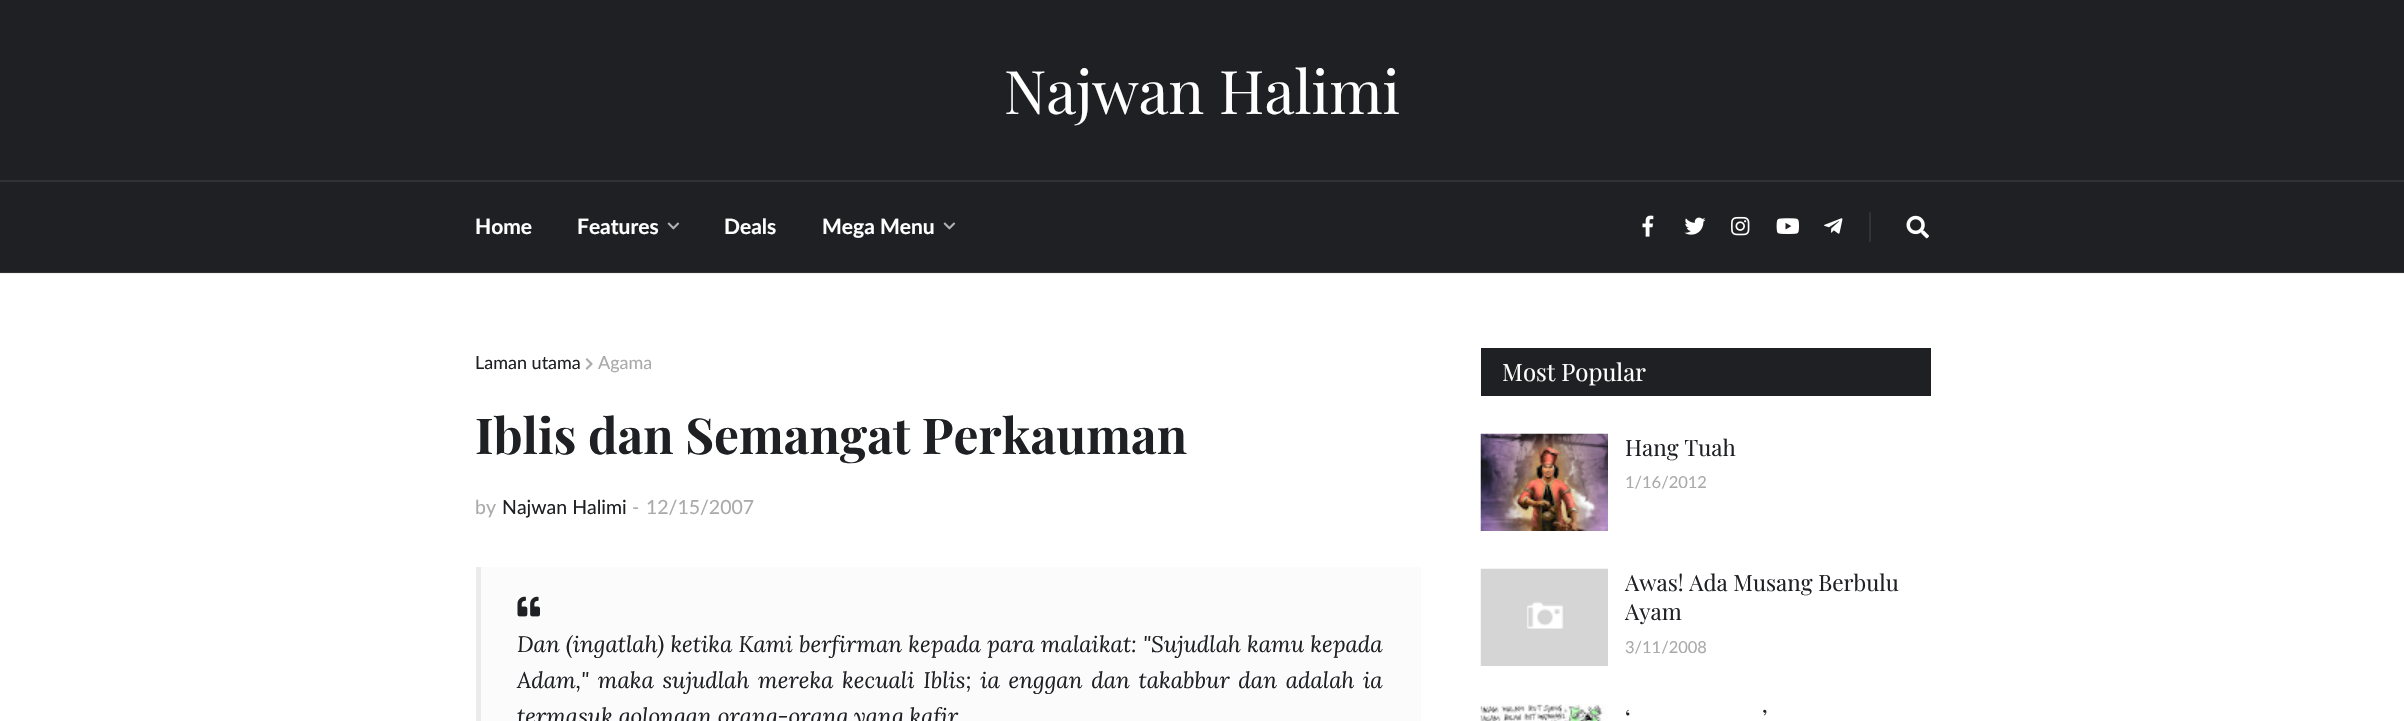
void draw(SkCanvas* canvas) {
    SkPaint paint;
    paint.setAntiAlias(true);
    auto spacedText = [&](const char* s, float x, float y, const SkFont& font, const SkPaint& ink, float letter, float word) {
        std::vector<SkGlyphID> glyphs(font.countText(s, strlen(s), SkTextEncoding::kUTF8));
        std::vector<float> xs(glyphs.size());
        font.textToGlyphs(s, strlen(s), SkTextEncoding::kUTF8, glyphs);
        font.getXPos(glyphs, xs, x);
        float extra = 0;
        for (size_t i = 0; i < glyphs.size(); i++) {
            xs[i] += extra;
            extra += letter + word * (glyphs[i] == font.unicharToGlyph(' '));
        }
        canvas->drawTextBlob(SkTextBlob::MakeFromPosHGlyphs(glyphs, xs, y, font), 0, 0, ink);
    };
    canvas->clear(0xFFFFFFFF);
    paint.setColor(0xFFF0F0F0);
    canvas->drawRect(SkRect::MakeXYWH(0, 273, 2404, 1), paint);
    paint.setColor(0xFF1F2024);
    canvas->drawRect(SkRect::MakeXYWH(0, 0, 2404, 272), paint);
    paint.setColor(0xFF323236);
    canvas->drawRect(SkRect::MakeXYWH(0, 272, 2404, 1), paint);
    SkFont font1(fontMgr->matchFamilyStyle("Playfair Display", SkFontStyle::Normal()), 60);
    font1.setSubpixel(true);
    paint.setColor(0xFFFFFFFF);
    canvas->drawString("Najwan Halimi", 1004, 114, font1, paint);
    paint.setColor(0xFF323236);
    canvas->drawRect(SkRect::MakeXYWH(0, 180, 2404, 2), paint);
    SkFont font2(fontMgr->matchFamilyStyle("Lato", SkFontStyle::Bold()), 21);
    font2.setSubpixel(true);
    paint.setColor(0xFFFFFFFF);
    canvas->drawString("Home", 475, 234, font2, paint);
    canvas->drawString("Features", 577, 234, font2, paint);
    canvas->drawImageRect(SkImages::DeferredFromEncodedData(SkData::MakeFromFileName("img1.png")), SkRect::MakeXYWH(667, 222, 13, 8), SkSamplingOptions());
    canvas->drawString("Deals", 724, 234, font2, paint);
    canvas->drawString("Mega Menu", 822, 234, font2, paint);
    canvas->drawImageRect(SkImages::DeferredFromEncodedData(SkData::MakeFromFileName("img1.png")), SkRect::MakeXYWH(943, 222, 13, 8), SkSamplingOptions());
    canvas->drawImageRect(SkImages::DeferredFromEncodedData(SkData::MakeFromFileName("img2.png")), SkRect::MakeXYWH(1642, 215, 12, 22), SkSamplingOptions());
    canvas->drawImageRect(SkImages::DeferredFromEncodedData(SkData::MakeFromFileName("img3.png")), SkRect::MakeXYWH(1684, 217, 22, 18), SkSamplingOptions());
    canvas->drawImageRect(SkImages::DeferredFromEncodedData(SkData::MakeFromFileName("img4.png")), SkRect::MakeXYWH(1731, 216, 19, 20), SkSamplingOptions());
    canvas->drawImageRect(SkImages::DeferredFromEncodedData(SkData::MakeFromFileName("img5.png")), SkRect::MakeXYWH(1776, 218, 23, 16), SkSamplingOptions());
    canvas->drawImageRect(SkImages::DeferredFromEncodedData(SkData::MakeFromFileName("img6.png")), SkRect::MakeXYWH(1824, 218, 19, 16), SkSamplingOptions());
    paint.setColor(0xFF323236);
    canvas->drawRect(SkRect::MakeXYWH(1869, 212, 2, 30), paint);
    canvas->drawImageRect(SkImages::DeferredFromEncodedData(SkData::MakeFromFileName("img7.png")), SkRect::MakeXYWH(1906, 215, 23, 24), SkSamplingOptions());
    SkFont font3(fontMgr->matchFamilyStyle("Lato", SkFontStyle::Normal()), 18);
    font3.setSubpixel(true);
    paint.setColor(0xFF1F2024);
    canvas->drawString("Laman utama", 475, 369, font3, paint);
    canvas->drawImageRect(SkImages::DeferredFromEncodedData(SkData::MakeFromFileName("img8.png")), SkRect::MakeXYWH(585, 358, 8, 12), SkSamplingOptions());
    paint.setColor(0xFFAAAAAA);
    canvas->drawString("Agama", 598, 369, font3, paint);
    SkFont font4(fontMgr->matchFamilyStyle("Playfair Display", SkFontStyle::Bold()), 49.5f);
    font4.setSubpixel(true);
    paint.setColor(0xFF1F2024);
    canvas->drawString("Iblis dan Semangat Perkauman", 475, 454, font4, paint);
    SkFont font5(fontMgr->matchFamilyStyle("Lato", SkFontStyle::Normal()), 19.5f);
    font5.setSubpixel(true);
    paint.setColor(0xFFAAAAAA);
    canvas->drawString("by", 475, 514, font5, paint);
    paint.setColor(0xFF1F2024);
    canvas->drawString("Najwan Halimi", 502, 514, font5, paint);
    paint.setColor(0xFFAAAAAA);
    canvas->drawString("-", 632, 514, font5, paint);
    canvas->drawString("12/15/2007", 646, 514, font5, paint);
    paint.setColor(0xFFFBFBFB);
    canvas->drawRect(SkRect::MakeXYWH(481, 567, 940, 154), paint);
    paint.setColor(0xFFEBEBEB);
    canvas->drawRect(SkRect::MakeXYWH(476, 567, 5, 154), paint);
    canvas->drawImageRect(SkImages::DeferredFromEncodedData(SkData::MakeFromFileName("img9.png")), SkRect::MakeXYWH(517, 596, 23, 21), SkSamplingOptions());
    SkFont font6(fontMgr->matchFamilyStyle("Lora", SkFontStyle::Italic()), 22.5f);
    font6.setSubpixel(true);
    paint.setColor(0xFF1F2024);
    spacedText("Dan (ingatlah) ketika Kami berfirman kepada para malaikat: \"Sujudlah kamu kepada", 517, 652, font6, paint, 0, 0.25f);
    spacedText("Adam,\" maka sujudlah mereka kecuali Iblis; ia enggan dan takabbur dan adalah ia", 517, 688, font6, paint, 0, 2.75f);
    canvas->drawString("termasuk golongan orang-orang yang kafir", 517, 724, font6, paint);
    canvas->drawRect(SkRect::MakeXYWH(1481, 348, 450, 48), paint);
    SkFont font7(fontMgr->matchFamilyStyle("Playfair Display", SkFontStyle::Normal()), 24);
    font7.setSubpixel(true);
    paint.setColor(0xFFFFFFFF);
    canvas->drawString("Most Popular", 1502, 381, font7, paint);
    canvas->drawImageRect(SkImages::DeferredFromEncodedData(SkData::MakeFromFileName("img10.png")), SkRect::MakeXYWH(1480, 433, 128, 98), SkSamplingOptions());
    SkFont font8(fontMgr->matchFamilyStyle("Playfair Display", SkFontStyle::Normal()), 22.5f);
    font8.setSubpixel(true);
    paint.setColor(0xFF1F2024);
    canvas->drawString("Hang Tuah", 1625, 456, font8, paint);
    SkFont font9(fontMgr->matchFamilyStyle("Lato", SkFontStyle::Normal()), 16.5f);
    font9.setSubpixel(true);
    paint.setColor(0xFFAAAAAA);
    canvas->drawString("1/16/2012", 1625, 488, font9, paint);
    canvas->drawImageRect(SkImages::DeferredFromEncodedData(SkData::MakeFromFileName("img11.png")), SkRect::MakeXYWH(1480, 568, 128, 98), SkSamplingOptions());
    paint.setColor(0xFF1F2024);
    canvas->drawString("Awas! Ada Musang Berbulu", 1625, 591, font8, paint);
    canvas->drawString("Ayam", 1625, 620, font8, paint);
    paint.setColor(0xFFAAAAAA);
    canvas->drawString("3/11/2008", 1625, 653, font9, paint);
    canvas->drawImageRect(SkImages::DeferredFromEncodedData(SkData::MakeFromFileName("img12.png")), SkRect::MakeXYWH(1480, 704, 128, 17), SkSamplingOptions());
    paint.setColor(0xFF1F2024);
    canvas->drawString("‘", 1625, 726, font8, paint);
    canvas->drawString("’", 1762, 726, font8, paint);
}
